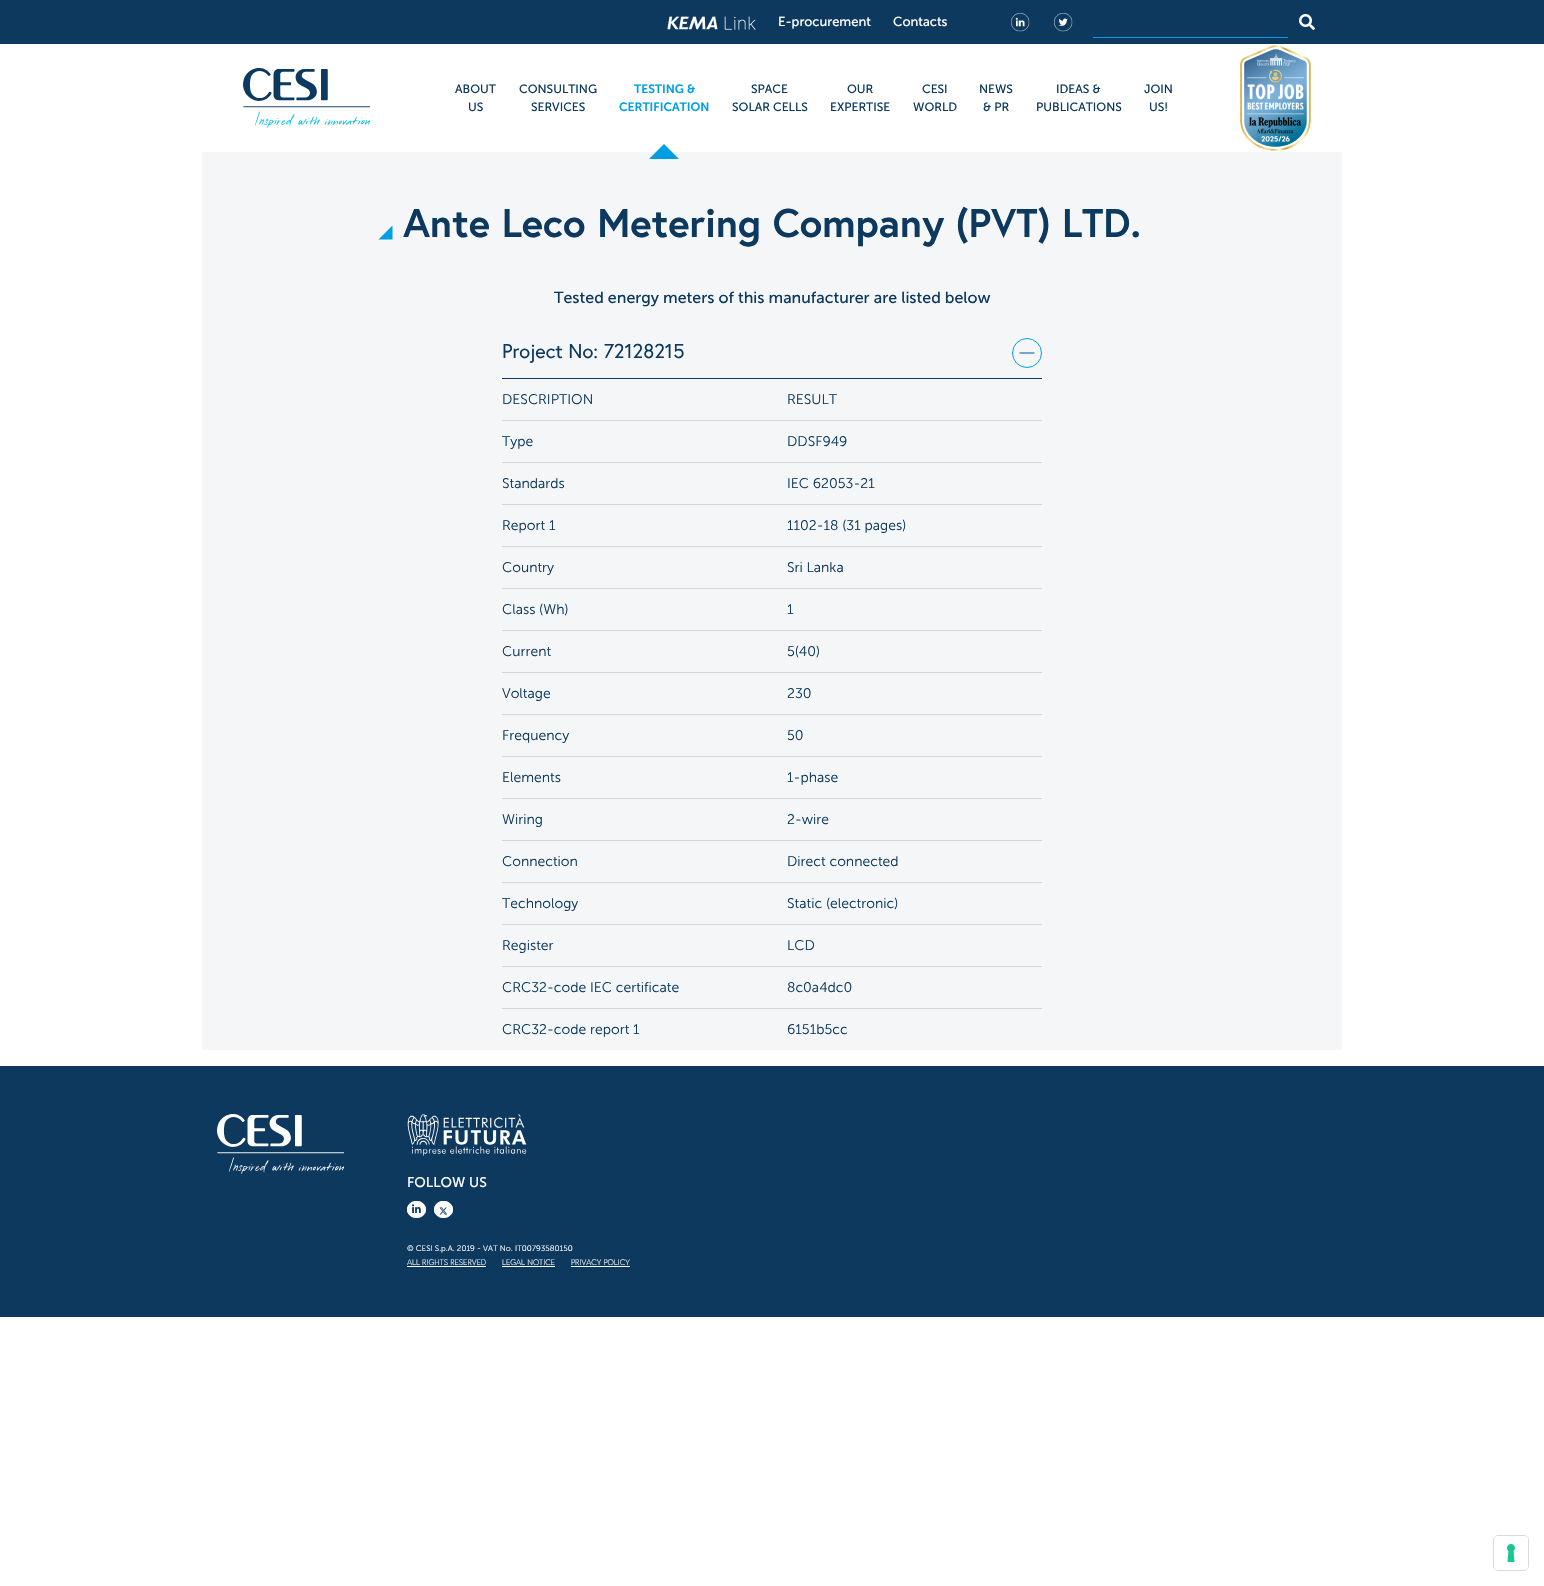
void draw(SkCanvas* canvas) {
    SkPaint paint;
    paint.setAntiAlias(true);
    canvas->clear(0xFFFFFFFF);
    paint.setColor(0xFF0D395F);
    canvas->drawRect(SkRect::MakeXYWH(0, 0, 1544, 44), paint);
    canvas->drawImageRect(SkImages::DeferredFromEncodedData(SkData::MakeFromFileName("img1.png")), SkRect::MakeXYWH(667, 16, 89, 14), SkSamplingOptions());
    SkFont font1(fontMgr->matchFamilyStyle("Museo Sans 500", SkFontStyle::Normal()), 13);
    font1.setSubpixel(true);
    paint.setColor(0xFFFFFFFF);
    canvas->drawString("E-procurement", 778, 26, font1, paint);
    canvas->drawString("Contacts", 893, 26, font1, paint);
    canvas->drawImageRect(SkImages::DeferredFromEncodedData(SkData::MakeFromFileName("img2.png")), SkRect::MakeXYWH(1011, 13, 19, 19), SkSamplingOptions());
    canvas->drawImageRect(SkImages::DeferredFromEncodedData(SkData::MakeFromFileName("img3.png")), SkRect::MakeXYWH(1054, 13, 19, 19), SkSamplingOptions());
    canvas->drawImageRect(SkImages::DeferredFromEncodedData(SkData::MakeFromFileName("img4.png")), SkRect::MakeXYWH(1299, 14, 16, 16), SkSamplingOptions());
    paint.setColor(0xFF009FE3);
    canvas->drawRect(SkRect::MakeXYWH(1093, 37, 195, 1), paint);
    canvas->drawImageRect(SkImages::DeferredFromEncodedData(SkData::MakeFromFileName("img5.png")), SkRect::MakeXYWH(243, 68, 128, 60), SkSamplingOptions());
    SkFont font2(fontMgr->matchFamilyStyle("Museo Sans 500", SkFontStyle::Normal()), 12);
    font2.setSubpixel(true);
    paint.setColor(0xFF0D395F);
    canvas->drawString("ABOUT", 455, 93, font2, paint);
    canvas->drawString("US", 468, 111, font2, paint);
    canvas->drawString("CONSULTING", 519, 93, font2, paint);
    canvas->drawString("SERVICES", 531, 111, font2, paint);
    SkFont font3(fontMgr->matchFamilyStyle("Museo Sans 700", SkFontStyle(600, SkFontStyle::kNormal_Width, SkFontStyle::kUpright_Slant)), 12);
    font3.setSubpixel(true);
    paint.setColor(0xFF009FE3);
    canvas->drawString("TESTING &", 634, 93, font3, paint);
    canvas->drawString("CERTIFICATION", 619, 111, font3, paint);
    paint.setColor(0xFFF4F6F8);
    canvas->drawRect(SkRect::MakeXYWH(202, 152, 1140, 898), paint);
    paint.setColor(0xFF009FE3);
    canvas->drawPath(SkPathBuilder().moveTo(679, 159).lineTo(649, 159).lineTo(664, 144).close().detach(), paint);
    paint.setColor(0xFF0D395F);
    canvas->drawString("SPACE", 751, 93, font2, paint);
    canvas->drawString("SOLAR CELLS", 732, 111, font2, paint);
    canvas->drawString("OUR", 847, 93, font2, paint);
    canvas->drawString("EXPERTISE", 830, 111, font2, paint);
    canvas->drawString("CESI", 922, 93, font2, paint);
    canvas->drawString("WORLD", 913, 111, font2, paint);
    canvas->drawString("NEWS", 979, 93, font2, paint);
    canvas->drawString("& PR", 983, 111, font2, paint);
    canvas->drawString("IDEAS &", 1056, 93, font2, paint);
    canvas->drawString("PUBLICATIONS", 1036, 111, font2, paint);
    canvas->drawString("JOIN", 1144, 93, font2, paint);
    canvas->drawString("US!", 1149, 111, font2, paint);
    canvas->drawImageRect(SkImages::DeferredFromEncodedData(SkData::MakeFromFileName("img6.png")), SkRect::MakeXYWH(1240, 45, 71, 106), SkSamplingOptions());
    paint.setColor(0xFF009FE3);
    canvas->drawPath(SkPathBuilder().moveTo(378.5f, 239.5f).lineTo(392.5f, 225.5f).lineTo(392.5f, 239.5f).close().detach(), paint);
    SkFont font4(fontMgr->matchFamilyStyle("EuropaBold", SkFontStyle::Bold()), 40);
    font4.setSubpixel(true);
    paint.setColor(0xFF0D395F);
    canvas->drawString("Ante Leco Metering Company (PVT) LTD.", 403, 237, font4, paint);
    SkFont font5(fontMgr->matchFamilyStyle("Museo Sans 500", SkFontStyle::Normal()), 16);
    font5.setSubpixel(true);
    canvas->drawString("Tested energy meters of this manufacturer are listed below", 554, 303, font5, paint);
    canvas->drawRect(SkRect::MakeXYWH(502, 378, 540, 1), paint);
    SkFont font6(fontMgr->matchFamilyStyle("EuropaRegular", SkFontStyle::Normal()), 20);
    font6.setSubpixel(true);
    canvas->drawString("Project No: 72128215", 502, 358, font6, paint);
    paint.setStyle(SkPaint::kStroke_Style);
    paint.setStrokeWidth(1);
    paint.setColor(0xFF009FE3);
    canvas->drawCircle(1027, 353, 14.5f, paint);
    paint.setColor(0xFF0054A1);
    canvas->drawPath(SkPathBuilder().moveTo(1034.5f, 353).lineTo(1019.5f, 353).detach(), paint);
    paint.setStyle(SkPaint::kFill_Style);
    paint.setColor(0xFFD6D7D9);
    canvas->drawRect(SkRect::MakeXYWH(502, 420, 540, 1), paint);
    SkFont font7(fontMgr->matchFamilyStyle("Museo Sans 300", SkFontStyle(300, SkFontStyle::kNormal_Width, SkFontStyle::kUpright_Slant)), 14);
    font7.setSubpixel(true);
    paint.setColor(0xFF0D395F);
    canvas->drawString("DESCRIPTION", 502, 404, font7, paint);
    canvas->drawString("RESULT", 787, 404, font7, paint);
    paint.setColor(0xFFD6D7D9);
    canvas->drawRect(SkRect::MakeXYWH(502, 462, 540, 1), paint);
    paint.setColor(0xFF0D395F);
    canvas->drawString("Type", 502, 446, font7, paint);
    canvas->drawString("DDSF949", 787, 446, font7, paint);
    paint.setColor(0xFFD6D7D9);
    canvas->drawRect(SkRect::MakeXYWH(502, 504, 540, 1), paint);
    paint.setColor(0xFF0D395F);
    canvas->drawString("Standards", 502, 488, font7, paint);
    canvas->drawString("IEC 62053-21", 787, 488, font7, paint);
    paint.setColor(0xFFD6D7D9);
    canvas->drawRect(SkRect::MakeXYWH(502, 546, 540, 1), paint);
    paint.setColor(0xFF0D395F);
    canvas->drawString("Report 1", 502, 530, font7, paint);
    canvas->drawString("1102-18 (31 pages)", 787, 530, font7, paint);
    paint.setColor(0xFFD6D7D9);
    canvas->drawRect(SkRect::MakeXYWH(502, 588, 540, 1), paint);
    paint.setColor(0xFF0D395F);
    canvas->drawString("Country", 502, 572, font7, paint);
    canvas->drawString("Sri Lanka", 787, 572, font7, paint);
    paint.setColor(0xFFD6D7D9);
    canvas->drawRect(SkRect::MakeXYWH(502, 630, 540, 1), paint);
    paint.setColor(0xFF0D395F);
    canvas->drawString("Class (Wh)", 502, 614, font7, paint);
    canvas->drawString("1", 787, 614, font7, paint);
    paint.setColor(0xFFD6D7D9);
    canvas->drawRect(SkRect::MakeXYWH(502, 672, 540, 1), paint);
    paint.setColor(0xFF0D395F);
    canvas->drawString("Current", 502, 656, font7, paint);
    canvas->drawString("5(40)", 787, 656, font7, paint);
    paint.setColor(0xFFD6D7D9);
    canvas->drawRect(SkRect::MakeXYWH(502, 714, 540, 1), paint);
    paint.setColor(0xFF0D395F);
    canvas->drawString("Voltage", 502, 698, font7, paint);
    canvas->drawString("230", 787, 698, font7, paint);
    paint.setColor(0xFFD6D7D9);
    canvas->drawRect(SkRect::MakeXYWH(502, 756, 540, 1), paint);
    paint.setColor(0xFF0D395F);
    canvas->drawString("Frequency", 502, 740, font7, paint);
    canvas->drawString("50", 787, 740, font7, paint);
    paint.setColor(0xFFD6D7D9);
    canvas->drawRect(SkRect::MakeXYWH(502, 798, 540, 1), paint);
    paint.setColor(0xFF0D395F);
    canvas->drawString("Elements", 502, 782, font7, paint);
    canvas->drawString("1-phase", 787, 782, font7, paint);
    paint.setColor(0xFFD6D7D9);
    canvas->drawRect(SkRect::MakeXYWH(502, 840, 540, 1), paint);
    paint.setColor(0xFF0D395F);
    canvas->drawString("Wiring", 502, 824, font7, paint);
    canvas->drawString("2-wire", 787, 824, font7, paint);
    paint.setColor(0xFFD6D7D9);
    canvas->drawRect(SkRect::MakeXYWH(502, 882, 540, 1), paint);
    paint.setColor(0xFF0D395F);
    canvas->drawString("Connection", 502, 866, font7, paint);
    canvas->drawString("Direct connected", 787, 866, font7, paint);
    paint.setColor(0xFFD6D7D9);
    canvas->drawRect(SkRect::MakeXYWH(502, 924, 540, 1), paint);
    paint.setColor(0xFF0D395F);
    canvas->drawString("Technology", 502, 908, font7, paint);
    canvas->drawString("Static (electronic)", 787, 908, font7, paint);
    paint.setColor(0xFFD6D7D9);
    canvas->drawRect(SkRect::MakeXYWH(502, 966, 540, 1), paint);
    paint.setColor(0xFF0D395F);
    canvas->drawString("Register", 502, 950, font7, paint);
    canvas->drawString("LCD", 787, 950, font7, paint);
    paint.setColor(0xFFD6D7D9);
    canvas->drawRect(SkRect::MakeXYWH(502, 1008, 540, 1), paint);
    paint.setColor(0xFF0D395F);
    canvas->drawString("CRC32-code IEC certificate", 502, 992, font7, paint);
    canvas->drawString("8c0a4dc0", 787, 992, font7, paint);
    canvas->drawString("CRC32-code report 1", 502, 1034, font7, paint);
    canvas->drawString("6151b5cc", 787, 1034, font7, paint);
    canvas->drawRect(SkRect::MakeXYWH(0, 1066, 1544, 251), paint);
    canvas->drawImageRect(SkImages::DeferredFromEncodedData(SkData::MakeFromFileName("img7.png")), SkRect::MakeXYWH(217, 1114, 127, 60), SkSamplingOptions());
    canvas->drawImageRect(SkImages::DeferredFromEncodedData(SkData::MakeFromFileName("img8.png")), SkRect::MakeXYWH(407, 1114, 120, 42), SkSamplingOptions());
    SkFont font8(fontMgr->matchFamilyStyle("Museo Sans 500", SkFontStyle::Normal()), 14);
    font8.setSubpixel(true);
    paint.setColor(0xFFFFFFFF);
    canvas->drawString("FOLLOW US", 407, 1187, font8, paint);
    canvas->drawOval(SkRect::MakeXYWH(407, 1201, 19, 17), paint);
    paint.setStyle(SkPaint::kStroke_Style);
    canvas->drawPath(SkPathBuilder().moveTo(416.5f, 1201.5f).cubicTo(428.5f, 1201.5f, 428.5f, 1217.5f, 416.5f, 1217.5f).cubicTo(404.5f, 1217.5f, 404.5f, 1201.5f, 416.5f, 1201.5f).close().detach(), paint);
    canvas->drawImageRect(SkImages::DeferredFromEncodedData(SkData::MakeFromFileName("img9.png")), SkRect::MakeXYWH(412, 1204, 9, 9), SkSamplingOptions());
    paint.setStyle(SkPaint::kFill_Style);
    canvas->drawOval(SkRect::MakeXYWH(434, 1201, 19, 17), paint);
    paint.setStyle(SkPaint::kStroke_Style);
    canvas->drawPath(SkPathBuilder().moveTo(443.5f, 1201.5f).cubicTo(455.5f, 1201.5f, 455.5f, 1217.5f, 443.5f, 1217.5f).cubicTo(431.5f, 1217.5f, 431.5f, 1201.5f, 443.5f, 1201.5f).close().detach(), paint);
    canvas->drawImageRect(SkImages::DeferredFromEncodedData(SkData::MakeFromFileName("img10.png")), SkRect::MakeXYWH(439, 1207, 9, 8), SkSamplingOptions());
    SkFont font9(fontMgr->matchFamilyStyle("Museo Sans 300", SkFontStyle(300, SkFontStyle::kNormal_Width, SkFontStyle::kUpright_Slant)), 8);
    font9.setSubpixel(true);
    paint.setStyle(SkPaint::kFill_Style);
    canvas->drawString("© CESI S.p.A. 2019 - VAT No. IT00793580150", 407, 1251, font9, paint);
    SkFont font10(fontMgr->matchFamilyStyle("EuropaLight", SkFontStyle(300, SkFontStyle::kNormal_Width, SkFontStyle::kUpright_Slant)), 8);
    font10.setSubpixel(true);
    canvas->drawString("ALL RIGHTS RESERVED", 407, 1265, font10, paint);
    canvas->drawRect(SkRect::MakeXYWH(407, 1266, 79, 1), paint);
    canvas->drawString("LEGAL NOTICE", 502, 1265, font10, paint);
    canvas->drawRect(SkRect::MakeXYWH(502, 1266, 53, 1), paint);
    canvas->drawString("PRIVACY POLICY", 571, 1265, font10, paint);
    canvas->drawRect(SkRect::MakeXYWH(571, 1266, 59, 1), paint);
    paint.setStyle(SkPaint::kStroke_Style);
    paint.setColor(0xFFD9D9D9);
    canvas->drawRoundRect(SkRect::MakeXYWH(1493.5f, 1535.5f, 35, 35), 4.5f, 4.5f, paint);
    paint.setStyle(SkPaint::kFill_Style);
    paint.setColor(0xFFFFFFFF);
    canvas->drawRoundRect(SkRect::MakeXYWH(1494, 1536, 34, 34), 4, 4, paint);
    canvas->drawImageRect(SkImages::DeferredFromEncodedData(SkData::MakeFromFileName("img11.png")), SkRect::MakeXYWH(1507, 1544, 8, 18), SkSamplingOptions());
}
